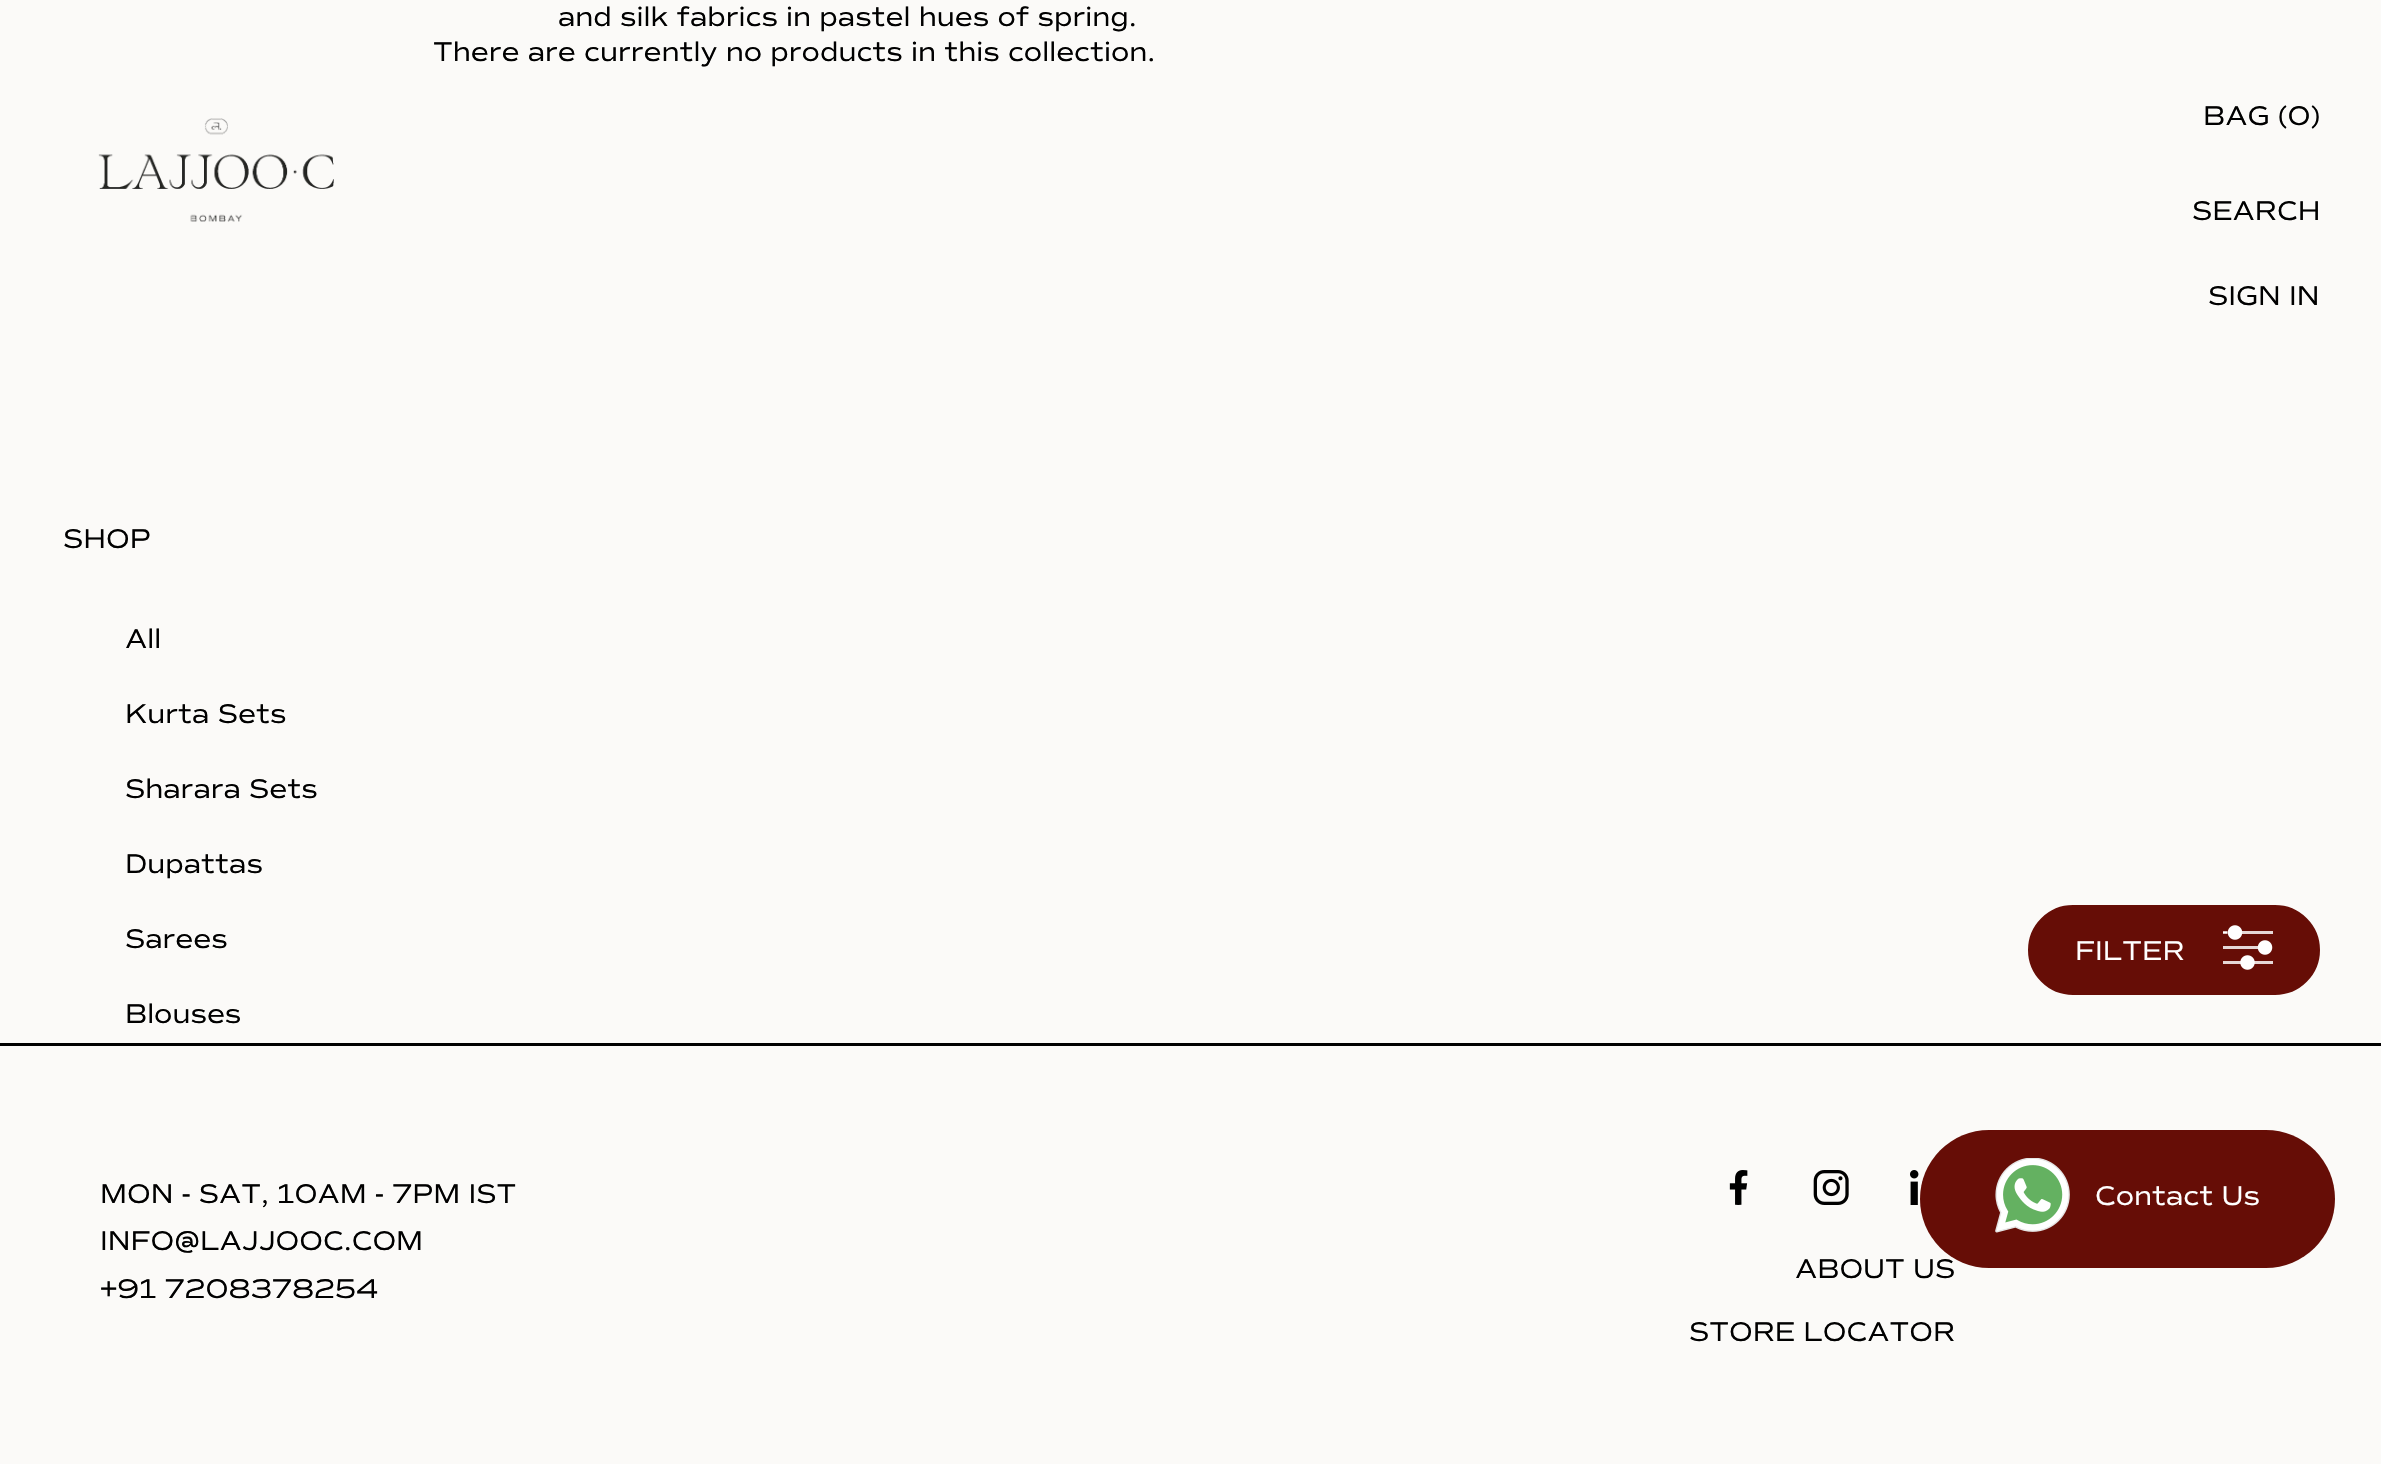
void draw(SkCanvas* canvas) {
    SkPaint paint;
    paint.setAntiAlias(true);
    canvas->clear(0xFFFBFAF8);
    SkFont font1(fontMgr->matchFamilyStyle("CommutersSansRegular", SkFontStyle::Normal()), 27.5f);
    font1.setSubpixel(true);
    paint.setColor(0xFF000000);
    canvas->drawString("and silk fabrics in pastel hues of spring.", 558, 26, font1, paint);
    canvas->drawString("There are currently no products in this collection.", 433, 61, font1, paint);
    paint.setColor(0xFF660D06);
    canvas->drawRoundRect(SkRect::MakeXYWH(2029.5f, 906.5f, 289, 87), 43.5f, 43.5f, paint);
    paint.setStyle(SkPaint::kStroke_Style);
    paint.setStrokeWidth(3);
    canvas->drawRoundRect(SkRect::MakeXYWH(2029.5f, 906.5f, 289, 87), 43.5f, 43.5f, paint);
    paint.setStyle(SkPaint::kFill_Style);
    paint.setColor(0xFFFFFFFF);
    canvas->drawString("FILTER", 2075, 960, font1, paint);
    canvas->drawImageRect(SkImages::DeferredFromEncodedData(SkData::MakeFromFileName("img1.png")), SkRect::MakeXYWH(2223, 925, 50, 45), SkSamplingOptions());
    paint.setColor(0xFF000000);
    canvas->drawString("BAG (0)", 2203, 125, font1, paint);
    canvas->drawString("SEARCH", 2192, 220, font1, paint);
    canvas->drawString("SIGN IN", 2208, 305, font1, paint);
    canvas->drawImageRect(SkImages::DeferredFromEncodedData(SkData::MakeFromFileName("img2.png")), SkRect::MakeXYWH(98, 118, 236, 104), SkSamplingOptions());
    canvas->drawString("SHOP", 63, 548, font1, paint);
    canvas->drawString("All", 125, 648, font1, paint);
    canvas->drawString("Kurta Sets", 125, 723, font1, paint);
    canvas->drawString("Sharara Sets", 125, 798, font1, paint);
    canvas->drawString("Dupattas", 125, 873, font1, paint);
    canvas->drawString("Sarees", 125, 948, font1, paint);
    canvas->drawString("Blouses", 125, 1023, font1, paint);
    canvas->drawRect(SkRect::MakeXYWH(0, 1043, 2381, 3), paint);
    canvas->drawString("MON - SAT, 10AM - 7PM IST", 100, 1203, font1, paint);
    canvas->drawString("INFO@LAJJOOC.COM", 100, 1250, font1, paint);
    canvas->drawString("+91 7208378254", 100, 1298, font1, paint);
    canvas->drawImageRect(SkImages::DeferredFromEncodedData(SkData::MakeFromFileName("img3.png")), SkRect::MakeXYWH(1729, 1170, 19, 35), SkSamplingOptions());
    canvas->drawImageRect(SkImages::DeferredFromEncodedData(SkData::MakeFromFileName("img4.png")), SkRect::MakeXYWH(1813, 1170, 36, 35), SkSamplingOptions());
    canvas->drawImageRect(SkImages::DeferredFromEncodedData(SkData::MakeFromFileName("img5.png")), SkRect::MakeXYWH(1910, 1170, 13, 35), SkSamplingOptions());
    canvas->drawString("ABOUT US", 1795, 1278, font1, paint);
    canvas->drawString("STORE LOCATOR", 1689, 1341, font1, paint);
    paint.setColor(0xFF660D06);
    canvas->drawRoundRect(SkRect::MakeXYWH(1920, 1130, 415, 138), 69, 69, paint);
    canvas->drawImageRect(SkImages::DeferredFromEncodedData(SkData::MakeFromFileName("img6.png")), SkRect::MakeXYWH(1995, 1158, 75, 75), SkSamplingOptions());
    paint.setColor(0xFFFFFFFF);
    canvas->drawString("Contact Us", 2095, 1205, font1, paint);
}
